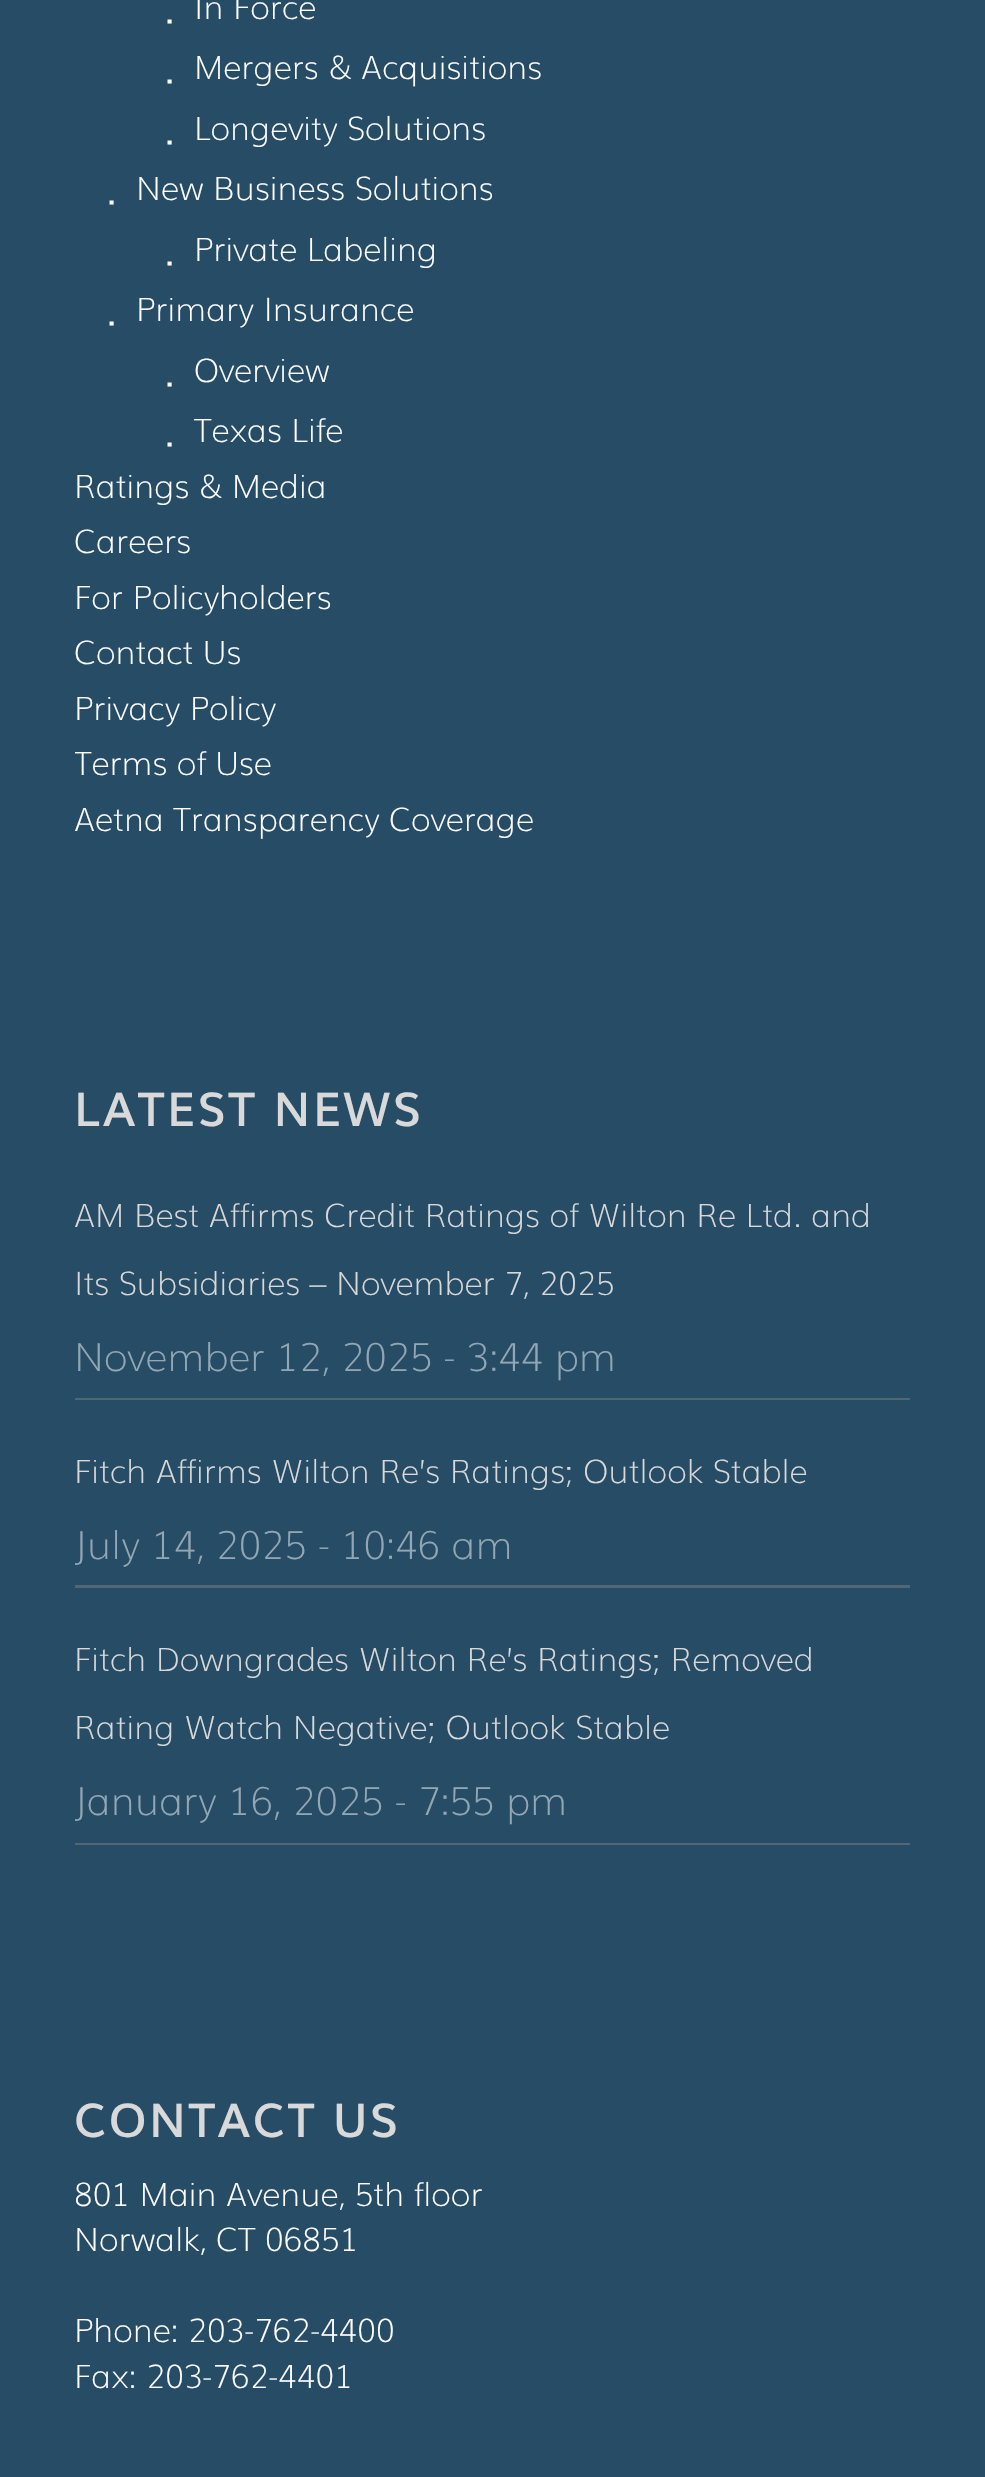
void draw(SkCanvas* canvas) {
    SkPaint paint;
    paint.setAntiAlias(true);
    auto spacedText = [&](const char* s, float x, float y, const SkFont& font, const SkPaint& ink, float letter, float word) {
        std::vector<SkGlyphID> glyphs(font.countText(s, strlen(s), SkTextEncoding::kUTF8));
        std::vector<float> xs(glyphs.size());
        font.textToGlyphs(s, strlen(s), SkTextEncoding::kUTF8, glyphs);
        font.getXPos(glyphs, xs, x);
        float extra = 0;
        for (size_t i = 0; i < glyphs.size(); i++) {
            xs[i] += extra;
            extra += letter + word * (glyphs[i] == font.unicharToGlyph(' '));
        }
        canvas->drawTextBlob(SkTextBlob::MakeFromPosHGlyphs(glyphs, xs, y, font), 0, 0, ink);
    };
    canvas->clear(0xFF264C66);
    SkFont font1(fontMgr->matchFamilyStyle("Muli", SkFontStyle(200, SkFontStyle::kNormal_Width, SkFontStyle::kUpright_Slant)), 32.5f);
    font1.setSubpixel(true);
    paint.setColor(0xFFFFFFFF);
    canvas->drawString("In Force", 194, 19, font1, paint);
    SkFont font2(fontMgr->matchFamilyStyle("Muli", SkFontStyle::Normal()), 42);
    font2.setSubpixel(true);
    canvas->drawString("∙", 164, 34, font2, paint);
    canvas->drawString("∙", 164, 94, font2, paint);
    canvas->drawString("Mergers & Acquisitions", 194, 79, font1, paint);
    canvas->drawString("∙", 164, 155, font2, paint);
    canvas->drawString("Longevity Solutions", 194, 140, font1, paint);
    canvas->drawString("New Business Solutions", 136, 200, font1, paint);
    canvas->drawString("∙", 106, 215, font2, paint);
    canvas->drawString("∙", 164, 276, font2, paint);
    canvas->drawString("Private Labeling", 194, 261, font1, paint);
    canvas->drawString("∙", 106, 336, font2, paint);
    canvas->drawString("Primary Insurance", 136, 321, font1, paint);
    canvas->drawString("Overview", 194, 382, font1, paint);
    canvas->drawString("∙", 164, 397, font2, paint);
    canvas->drawString("Texas Life", 194, 442, font1, paint);
    canvas->drawString("∙", 164, 457, font2, paint);
    canvas->drawString("Ratings & Media", 74, 498, font1, paint);
    canvas->drawString("Careers", 74, 553, font1, paint);
    canvas->drawString("For Policyholders", 74, 609, font1, paint);
    canvas->drawString("Contact Us", 74, 664, font1, paint);
    canvas->drawString("Privacy Policy", 74, 720, font1, paint);
    canvas->save();
    canvas->clipRect(SkRect::MakeXYWH(75, 0, 835, 840));
    canvas->drawString("Terms of Use", 74, 775, font1, paint);
    canvas->restore();
    canvas->drawString("Aetna Transparency Coverage", 74, 831, font1, paint);
    SkFont font3(fontMgr->matchFamilyStyle("Muli", SkFontStyle(600, SkFontStyle::kNormal_Width, SkFontStyle::kUpright_Slant)), 46.75f);
    font3.setSubpixel(true);
    paint.setColor(0xFFD9D9D9);
    spacedText("LATEST NEWS", 74, 1126, font3, paint, 2.5f, 0);
    canvas->drawString("AM Best Affirms Credit Ratings of Wilton Re Ltd. and", 74, 1227, font1, paint);
    canvas->drawString("Its Subsidiaries – November 7, 2025", 74, 1295, font1, paint);
    paint.setColor(0xFF536673);
    canvas->drawRect(SkRect::MakeXYWH(75, 1398, 835, 2), paint);
    SkFont font4(fontMgr->matchFamilyStyle("Muli", SkFontStyle(200, SkFontStyle::kNormal_Width, SkFontStyle::kUpright_Slant)), 39.1f);
    font4.setSubpixel(true);
    paint.setColor(0xFF93A6B3);
    canvas->drawString("November 12, 2025 - 3:44 pm", 74, 1371, font4, paint);
    paint.setColor(0xFFD9D9D9);
    canvas->drawString("Fitch Affirms Wilton Re’s Ratings; Outlook Stable", 74, 1483, font1, paint);
    paint.setColor(0xFF536673);
    canvas->drawRect(SkRect::MakeXYWH(75, 1585, 835, 3), paint);
    canvas->save();
    canvas->clipRect(SkRect::MakeXYWH(75, 1430, 835, 158));
    paint.setColor(0xFF93A6B3);
    canvas->drawString("July 14, 2025 - 10:46 am", 74, 1559, font4, paint);
    canvas->restore();
    paint.setColor(0xFFD9D9D9);
    canvas->drawString("Fitch Downgrades Wilton Re’s Ratings; Removed", 74, 1671, font1, paint);
    canvas->drawString("Rating Watch Negative; Outlook Stable", 74, 1739, font1, paint);
    paint.setColor(0xFF536673);
    canvas->drawRect(SkRect::MakeXYWH(75, 1843, 835, 2), paint);
    canvas->save();
    canvas->clipRect(SkRect::MakeXYWH(75, 1618, 835, 227));
    paint.setColor(0xFF93A6B3);
    canvas->drawString("January 16, 2025 - 7:55 pm", 74, 1815, font4, paint);
    canvas->restore();
    paint.setColor(0xFFD9D9D9);
    spacedText("CONTACT US", 74, 2137, font3, paint, 2.5f, 0);
    paint.setColor(0xFFFFFFFF);
    canvas->drawString("801 Main Avenue, 5th floor", 74, 2206, font1, paint);
    canvas->drawString("Norwalk, CT 06851", 74, 2251, font1, paint);
    canvas->drawString("Phone: 203-762-4400", 74, 2342, font1, paint);
    canvas->drawString("Fax: 203-762-4401", 74, 2388, font1, paint);
}
